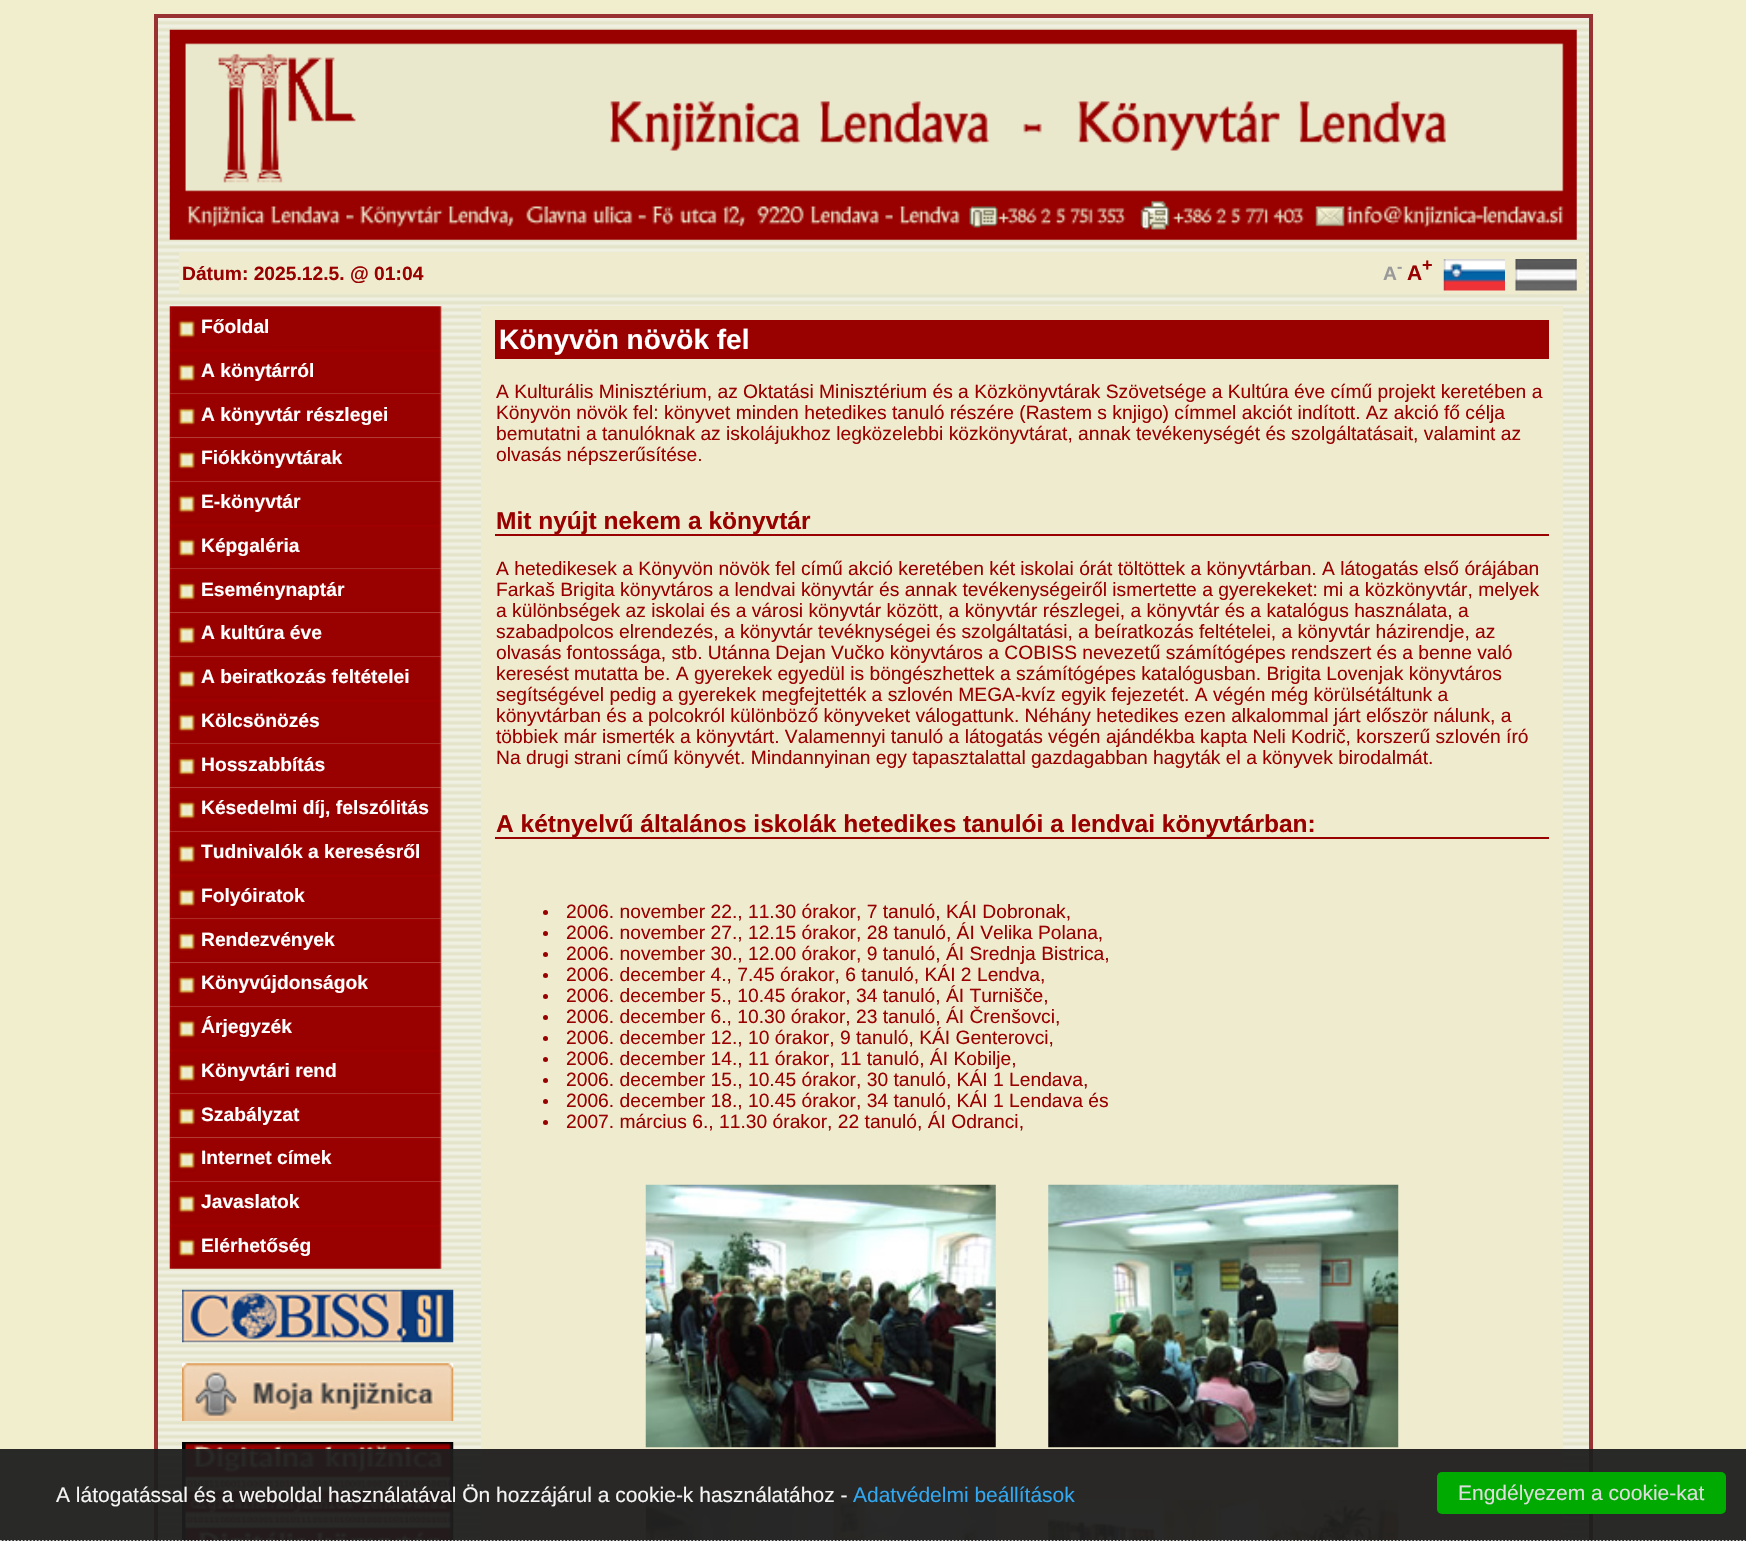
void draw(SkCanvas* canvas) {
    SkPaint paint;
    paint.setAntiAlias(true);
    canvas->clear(0xFFF1EECD);
    canvas->drawImageRect(SkImages::DeferredFromEncodedData(SkData::MakeFromFileName("img1.png")), SkRect::MakeXYWH(158, 18, 1431, 1523), SkSamplingOptions());
    paint.setStyle(SkPaint::kStroke_Style);
    paint.setStrokeWidth(4);
    paint.setColor(0xFF993333);
    canvas->drawRect(SkRect::MakeXYWH(156, 16, 1435, 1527), paint);
    canvas->drawImageRect(SkImages::DeferredFromEncodedData(SkData::MakeFromFileName("img2.png")), SkRect::MakeXYWH(169, 29, 1408, 211), SkSamplingOptions());
    paint.setStyle(SkPaint::kFill_Style);
    paint.setColor(0xFFEFEBCE);
    canvas->drawRect(SkRect::MakeXYWH(179, 252, 1407, 42), paint);
    SkFont font1(fontMgr->matchFamilyStyle("Liberation Sans", SkFontStyle::Bold()), 19.25f);
    font1.setSubpixel(true);
    paint.setColor(0xFF990000);
    canvas->drawString("Dátum: 2025.12.5. @ 01:04", 182, 280, font1, paint);
    paint.setColor(0xFF999999);
    canvas->drawString("A", 1383, 280, font1, paint);
    SkFont font2(fontMgr->matchFamilyStyle("Liberation Sans", SkFontStyle::Bold()), 16);
    font2.setSubpixel(true);
    canvas->drawString("-", 1397, 272, font2, paint);
    SkFont font3(fontMgr->matchFamilyStyle("Liberation Sans", SkFontStyle::Bold()), 21);
    font3.setSubpixel(true);
    paint.setColor(0xFF990000);
    canvas->drawString("A", 1407, 280, font3, paint);
    SkFont font4(fontMgr->matchFamilyStyle("Liberation Sans", SkFontStyle::Bold()), 18);
    font4.setSubpixel(true);
    canvas->drawString("+", 1422, 271, font4, paint);
    canvas->drawImageRect(SkImages::DeferredFromEncodedData(SkData::MakeFromFileName("img3.png")), SkRect::MakeXYWH(1443, 259, 62, 32), SkSamplingOptions());
    canvas->drawImageRect(SkImages::DeferredFromEncodedData(SkData::MakeFromFileName("img4.png")), SkRect::MakeXYWH(1515, 259, 62, 32), SkSamplingOptions());
    canvas->drawImageRect(SkImages::DeferredFromEncodedData(SkData::MakeFromFileName("img5.png")), SkRect::MakeXYWH(169, 306, 273, 44), SkSamplingOptions());
    paint.setColor(0xFFFFFFFF);
    canvas->drawString("Főoldal", 201, 333, font1, paint);
    canvas->drawImageRect(SkImages::DeferredFromEncodedData(SkData::MakeFromFileName("img6.png")), SkRect::MakeXYWH(169, 350, 273, 44), SkSamplingOptions());
    canvas->drawString("A könytárról", 201, 377, font1, paint);
    canvas->drawImageRect(SkImages::DeferredFromEncodedData(SkData::MakeFromFileName("img7.png")), SkRect::MakeXYWH(169, 393, 273, 45), SkSamplingOptions());
    canvas->drawString("A könyvtár részlegei", 201, 421, font1, paint);
    canvas->drawImageRect(SkImages::DeferredFromEncodedData(SkData::MakeFromFileName("img8.png")), SkRect::MakeXYWH(169, 437, 273, 45), SkSamplingOptions());
    canvas->drawString("Fiókkönyvtárak", 201, 464, font1, paint);
    canvas->drawImageRect(SkImages::DeferredFromEncodedData(SkData::MakeFromFileName("img9.png")), SkRect::MakeXYWH(169, 481, 273, 44), SkSamplingOptions());
    canvas->drawString("E-könyvtár", 201, 508, font1, paint);
    canvas->drawImageRect(SkImages::DeferredFromEncodedData(SkData::MakeFromFileName("img6.png")), SkRect::MakeXYWH(169, 525, 273, 44), SkSamplingOptions());
    canvas->drawString("Képgaléria", 201, 552, font1, paint);
    canvas->drawImageRect(SkImages::DeferredFromEncodedData(SkData::MakeFromFileName("img7.png")), SkRect::MakeXYWH(169, 568, 273, 45), SkSamplingOptions());
    canvas->drawString("Eseménynaptár", 201, 596, font1, paint);
    canvas->drawImageRect(SkImages::DeferredFromEncodedData(SkData::MakeFromFileName("img8.png")), SkRect::MakeXYWH(169, 612, 273, 45), SkSamplingOptions());
    canvas->drawString("A kultúra éve", 201, 639, font1, paint);
    canvas->drawImageRect(SkImages::DeferredFromEncodedData(SkData::MakeFromFileName("img9.png")), SkRect::MakeXYWH(169, 656, 273, 44), SkSamplingOptions());
    canvas->drawString("A beiratkozás feltételei", 201, 683, font1, paint);
    canvas->drawImageRect(SkImages::DeferredFromEncodedData(SkData::MakeFromFileName("img6.png")), SkRect::MakeXYWH(169, 700, 273, 44), SkSamplingOptions());
    canvas->drawString("Kölcsönözés", 201, 727, font1, paint);
    canvas->drawImageRect(SkImages::DeferredFromEncodedData(SkData::MakeFromFileName("img7.png")), SkRect::MakeXYWH(169, 743, 273, 45), SkSamplingOptions());
    canvas->drawString("Hosszabbítás", 201, 771, font1, paint);
    canvas->drawImageRect(SkImages::DeferredFromEncodedData(SkData::MakeFromFileName("img8.png")), SkRect::MakeXYWH(169, 787, 273, 45), SkSamplingOptions());
    canvas->drawString("Késedelmi díj, felszólitás", 201, 814, font1, paint);
    canvas->drawImageRect(SkImages::DeferredFromEncodedData(SkData::MakeFromFileName("img9.png")), SkRect::MakeXYWH(169, 831, 273, 44), SkSamplingOptions());
    canvas->drawString("Tudnivalók a keresésről", 201, 858, font1, paint);
    canvas->drawImageRect(SkImages::DeferredFromEncodedData(SkData::MakeFromFileName("img6.png")), SkRect::MakeXYWH(169, 875, 273, 44), SkSamplingOptions());
    canvas->drawString("Folyóiratok", 201, 902, font1, paint);
    canvas->drawImageRect(SkImages::DeferredFromEncodedData(SkData::MakeFromFileName("img7.png")), SkRect::MakeXYWH(169, 918, 273, 45), SkSamplingOptions());
    canvas->drawString("Rendezvények", 201, 946, font1, paint);
    canvas->drawImageRect(SkImages::DeferredFromEncodedData(SkData::MakeFromFileName("img8.png")), SkRect::MakeXYWH(169, 962, 273, 45), SkSamplingOptions());
    canvas->drawString("Könyvújdonságok", 201, 989, font1, paint);
    canvas->drawImageRect(SkImages::DeferredFromEncodedData(SkData::MakeFromFileName("img9.png")), SkRect::MakeXYWH(169, 1006, 273, 44), SkSamplingOptions());
    canvas->drawString("Árjegyzék", 201, 1033, font1, paint);
    canvas->drawImageRect(SkImages::DeferredFromEncodedData(SkData::MakeFromFileName("img6.png")), SkRect::MakeXYWH(169, 1050, 273, 44), SkSamplingOptions());
    canvas->drawString("Könyvtári rend", 201, 1077, font1, paint);
    canvas->drawImageRect(SkImages::DeferredFromEncodedData(SkData::MakeFromFileName("img7.png")), SkRect::MakeXYWH(169, 1093, 273, 45), SkSamplingOptions());
    canvas->drawString("Szabályzat", 201, 1121, font1, paint);
    canvas->drawImageRect(SkImages::DeferredFromEncodedData(SkData::MakeFromFileName("img8.png")), SkRect::MakeXYWH(169, 1137, 273, 45), SkSamplingOptions());
    canvas->drawString("Internet címek", 201, 1164, font1, paint);
    canvas->drawImageRect(SkImages::DeferredFromEncodedData(SkData::MakeFromFileName("img9.png")), SkRect::MakeXYWH(169, 1181, 273, 44), SkSamplingOptions());
    canvas->drawString("Javaslatok", 201, 1208, font1, paint);
    canvas->drawImageRect(SkImages::DeferredFromEncodedData(SkData::MakeFromFileName("img6.png")), SkRect::MakeXYWH(169, 1225, 273, 44), SkSamplingOptions());
    canvas->drawString("Elérhetőség", 201, 1252, font1, paint);
    canvas->drawImageRect(SkImages::DeferredFromEncodedData(SkData::MakeFromFileName("img10.png")), SkRect::MakeXYWH(182, 1289, 272, 54), SkSamplingOptions());
    canvas->drawImageRect(SkImages::DeferredFromEncodedData(SkData::MakeFromFileName("img11.png")), SkRect::MakeXYWH(182, 1363, 272, 58), SkSamplingOptions());
    canvas->drawImageRect(SkImages::DeferredFromEncodedData(SkData::MakeFromFileName("img12.png")), SkRect::MakeXYWH(182, 1442, 272, 99), SkSamplingOptions());
    paint.setColor(0xFFEFEBCE);
    canvas->drawRect(SkRect::MakeXYWH(481, 306, 1082, 1235), paint);
    paint.setColor(0xFF990000);
    canvas->drawRect(SkRect::MakeXYWH(495, 320, 1054, 39), paint);
    SkFont font5(fontMgr->matchFamilyStyle("Liberation Sans", SkFontStyle::Bold()), 28);
    font5.setSubpixel(true);
    paint.setColor(0xFFFFFFFF);
    canvas->drawString("Könyvön növök fel", 499, 349, font5, paint);
    SkFont font6(fontMgr->matchFamilyStyle("Liberation Sans", SkFontStyle::Normal()), 19.25f);
    font6.setSubpixel(true);
    paint.setColor(0xFF990000);
    canvas->drawString("A Kulturális Minisztérium, az Oktatási Minisztérium és a Közkönyvtárak Szövetsége a Kultúra éve című projekt keretében a", 496, 398, font6, paint);
    canvas->drawString("Könyvön növök fel: könyvet minden hetedikes tanuló részére (Rastem s knjigo) címmel akciót indított. Az akció fő célja", 496, 419, font6, paint);
    canvas->drawString("bemutatni a tanulóknak az iskolájukhoz legközelebbi közkönyvtárat, annak tevékenységét és szolgáltatásait, valamint az", 496, 440, font6, paint);
    canvas->drawString("olvasás népszerűsítése.", 496, 461, font6, paint);
    canvas->drawRect(SkRect::MakeXYWH(495, 534, 1054, 2), paint);
    SkFont font7(fontMgr->matchFamilyStyle("Liberation Sans", SkFontStyle::Bold()), 24.5f);
    font7.setSubpixel(true);
    canvas->drawString("Mit nyújt nekem a könyvtár", 496, 529, font7, paint);
    canvas->drawString("A hetedikesek a Könyvön növök fel című akció keretében két iskolai órát töltöttek a könyvtárban. A látogatás első órájában", 496, 575, font6, paint);
    canvas->drawString("Farkaš Brigita könyvtáros a lendvai könyvtár és annak tevékenységeiről ismertette a gyerekeket: mi a közkönyvtár, melyek", 496, 596, font6, paint);
    canvas->drawString("a különbségek az iskolai és a városi könyvtár között, a könyvtár részlegei, a könyvtár és a katalógus használata, a", 496, 617, font6, paint);
    canvas->drawString("szabadpolcos elrendezés, a könyvtár tevéknységei és szolgáltatási, a beíratkozás feltételei, a könyvtár házirendje, az", 496, 638, font6, paint);
    canvas->drawString("olvasás fontossága, stb. Utánna Dejan Vučko könyvtáros a COBISS nevezetű számítógépes rendszert és a benne való", 496, 659, font6, paint);
    canvas->drawString("keresést mutatta be. A gyerekek egyedül is böngészhettek a számítógépes katalógusban. Brigita Lovenjak könyvtáros", 496, 680, font6, paint);
    canvas->drawString("segítségével pedig a gyerekek megfejtették a szlovén MEGA-kvíz egyik fejezetét. A végén még körülsétáltunk a", 496, 701, font6, paint);
    canvas->drawString("könyvtárban és a polcokról különböző könyveket válogattunk. Néhány hetedikes ezen alkalommal járt először nálunk, a", 496, 722, font6, paint);
    canvas->drawString("többiek már ismerték a könyvtárt. Valamennyi tanuló a látogatás végén ajándékba kapta Neli Kodrič, korszerű szlovén író", 496, 743, font6, paint);
    canvas->drawString("Na drugi strani című könyvét. Mindannyinan egy tapasztalattal gazdagabban hagyták el a könyvek birodalmát.", 496, 764, font6, paint);
    canvas->drawRect(SkRect::MakeXYWH(495, 837, 1054, 2), paint);
    canvas->drawString("A kétnyelvű általános iskolák hetedikes tanulói a lendvai könyvtárban:", 496, 832, font7, paint);
    canvas->drawCircle(545.5f, 912.5f, 2.5f, paint);
    canvas->drawString("2006. november 22., 11.30 órakor, 7 tanuló, KÁI Dobronak,", 566, 918, font6, paint);
    canvas->drawCircle(545.5f, 933.5f, 2.5f, paint);
    canvas->drawString("2006. november 27., 12.15 órakor, 28 tanuló, ÁI Velika Polana,", 566, 939, font6, paint);
    canvas->drawCircle(545.5f, 954.5f, 2.5f, paint);
    canvas->drawString("2006. november 30., 12.00 órakor, 9 tanuló, ÁI Srednja Bistrica,", 566, 960, font6, paint);
    canvas->drawCircle(545.5f, 975.5f, 2.5f, paint);
    canvas->drawString("2006. december 4., 7.45 órakor, 6 tanuló, KÁI 2 Lendva,", 566, 981, font6, paint);
    canvas->drawCircle(545.5f, 996.5f, 2.5f, paint);
    canvas->drawString("2006. december 5., 10.45 órakor, 34 tanuló, ÁI Turnišče,", 566, 1002, font6, paint);
    canvas->drawCircle(545.5f, 1017.5f, 2.5f, paint);
    canvas->drawString("2006. december 6., 10.30 órakor, 23 tanuló, ÁI Črenšovci,", 566, 1023, font6, paint);
    canvas->drawCircle(545.5f, 1038.5f, 2.5f, paint);
    canvas->drawString("2006. december 12., 10 órakor, 9 tanuló, KÁI Genterovci,", 566, 1044, font6, paint);
    canvas->drawCircle(545.5f, 1059.5f, 2.5f, paint);
    canvas->drawString("2006. december 14., 11 órakor, 11 tanuló, ÁI Kobilje,", 566, 1065, font6, paint);
    canvas->drawCircle(545.5f, 1080.5f, 2.5f, paint);
    canvas->drawString("2006. december 15., 10.45 órakor, 30 tanuló, KÁI 1 Lendava,", 566, 1086, font6, paint);
    canvas->drawCircle(545.5f, 1101.5f, 2.5f, paint);
    canvas->drawString("2006. december 18., 10.45 órakor, 34 tanuló, KÁI 1 Lendava és", 566, 1107, font6, paint);
    canvas->drawCircle(545.5f, 1122.5f, 2.5f, paint);
    canvas->drawString("2007. március 6., 11.30 órakor, 22 tanuló, ÁI Odranci,", 566, 1128, font6, paint);
    canvas->drawImageRect(SkImages::DeferredFromEncodedData(SkData::MakeFromFileName("img13.png")), SkRect::MakeXYWH(645, 1184, 351, 264), SkSamplingOptions());
    canvas->drawImageRect(SkImages::DeferredFromEncodedData(SkData::MakeFromFileName("img14.png")), SkRect::MakeXYWH(1048, 1184, 351, 264), SkSamplingOptions());
    canvas->drawImageRect(SkImages::DeferredFromEncodedData(SkData::MakeFromFileName("img15.png")), SkRect::MakeXYWH(645, 1499, 351, 42), SkSamplingOptions());
    canvas->drawImageRect(SkImages::DeferredFromEncodedData(SkData::MakeFromFileName("img16.png")), SkRect::MakeXYWH(1048, 1499, 351, 42), SkSamplingOptions());
    paint.setColor(0xF21D1D1D);
    canvas->drawRect(SkRect::MakeXYWH(0, 1449, 1746, 92), paint);
    paint.setStyle(SkPaint::kStroke_Style);
    paint.setStrokeWidth(1.8f);
    paint.setColor(0xFFCCCCCC);
    paint.setPathEffect(SkDashPathEffect::Make({{1.75f, 1.75f}}, 0));
    canvas->drawPath(SkPathBuilder().moveTo(0, 1541).lineTo(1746.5f, 1541).detach(), paint);
    paint.setPathEffect(nullptr);
    SkFont font8(fontMgr->matchFamilyStyle("Liberation Sans", SkFontStyle::Normal()), 21);
    font8.setSubpixel(true);
    paint.setStyle(SkPaint::kFill_Style);
    paint.setColor(0xFFF5F5F5);
    canvas->drawString("A látogatással és a weboldal használatával Ön hozzájárul a cookie-k használatához -", 56, 1502, font8, paint);
    paint.setColor(0xFF31A8F0);
    canvas->drawString("Adatvédelmi beállítások", 853, 1502, font8, paint);
    paint.setColor(0xFF00AA00);
    canvas->drawRoundRect(SkRect::MakeXYWH(1437, 1472, 289, 42), 5, 5, paint);
    paint.setColor(0xFFDDDDDD);
    canvas->drawString("Engdélyezem a cookie-kat", 1458, 1500, font8, paint);
}
